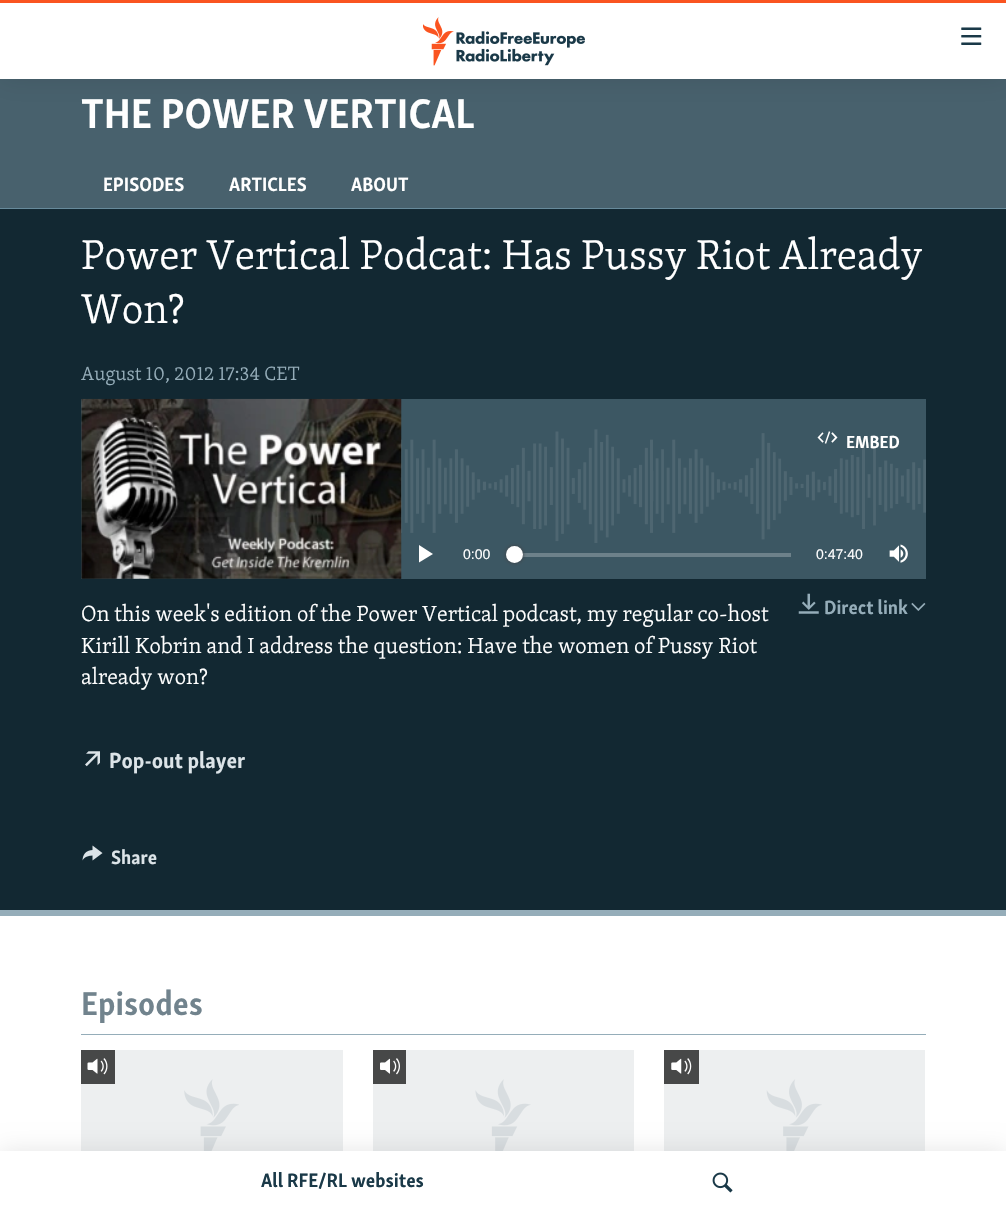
void draw(SkCanvas* canvas) {
    SkPaint paint;
    paint.setAntiAlias(true);
    canvas->clear(0xFFFFFFFF);
    paint.setColor(0xFF48616D);
    canvas->drawRect(SkRect::MakeXYWH(0, 79, 1006, 129), paint);
    SkFont font1(fontMgr->matchFamilyStyle("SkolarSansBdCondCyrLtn", SkFontStyle::Bold()), 42.75f);
    font1.setSubpixel(true);
    paint.setColor(0xFFFFFFFF);
    canvas->drawString("THE POWER VERTICAL", 81, 128, font1, paint);
    SkFont font2(fontMgr->matchFamilyStyle("SkolarSansBdCondCyrLtn", SkFontStyle::Bold()), 19.75f);
    font2.setSubpixel(true);
    canvas->drawString("EPISODES", 103, 191, font2, paint);
    canvas->drawString("ARTICLES", 229, 191, font2, paint);
    canvas->drawString("ABOUT", 351, 191, font2, paint);
    paint.setColor(0xFF122832);
    canvas->drawRect(SkRect::MakeXYWH(0, 209, 1006, 701), paint);
    paint.setColor(0xFF678A9B);
    canvas->drawRect(SkRect::MakeXYWH(0, 208, 1006, 1), paint);
    paint.setColor(0xFF95ADB9);
    canvas->drawRect(SkRect::MakeXYWH(0, 910, 1006, 6), paint);
    SkFont font3(fontMgr->matchFamilyStyle("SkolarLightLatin", SkFontStyle(300, SkFontStyle::kNormal_Width, SkFontStyle::kUpright_Slant)), 42.75f);
    font3.setSubpixel(true);
    paint.setColor(0xFFFFFFFF);
    canvas->drawString("Power Vertical Podcat: Has Pussy Riot Already", 81, 269, font3, paint);
    canvas->drawString("Won?", 81, 323, font3, paint);
    SkFont font4(fontMgr->matchFamilyStyle("SkolarLightLatin", SkFontStyle(300, SkFontStyle::kNormal_Width, SkFontStyle::kUpright_Slant)), 19.75f);
    font4.setSubpixel(true);
    paint.setColor(0xFF95ADB9);
    canvas->drawString("August 10, 2012 17:34 CET", 81, 380, font4, paint);
    paint.setColor(0xFF3C5763);
    canvas->drawRect(SkRect::MakeXYWH(81, 399, 845, 180), paint);
    canvas->drawImageRect(SkImages::DeferredFromEncodedData(SkData::MakeFromFileName("img1.png")), SkRect::MakeXYWH(81, 429, 845, 114), SkSamplingOptions());
    canvas->drawImageRect(SkImages::DeferredFromEncodedData(SkData::MakeFromFileName("img2.png")), SkRect::MakeXYWH(81, 398, 321, 181), SkSamplingOptions());
    canvas->drawImageRect(SkImages::DeferredFromEncodedData(SkData::MakeFromFileName("img3.png")), SkRect::MakeXYWH(817, 431, 21, 13), SkSamplingOptions());
    SkFont font5(fontMgr->matchFamilyStyle("SkolarSansBdCondCyrLtn", SkFontStyle::Bold()), 18);
    font5.setSubpixel(true);
    paint.setColor(0xFFFFFFFF);
    canvas->drawString("EMBED", 846, 448, font5, paint);
    canvas->drawPath(SkPathBuilder().moveTo(419, 562.5f).lineTo(433, 554).lineTo(419, 545).close().detach(), paint);
    SkFont font6(fontMgr->matchFamilyStyle("Liberation Sans", SkFontStyle::Normal()), 14);
    font6.setSubpixel(true);
    canvas->drawString("0:00", 463, 559, font6, paint);
    paint.setColor(0xFF6D818A);
    canvas->drawRect(SkRect::MakeXYWH(515, 553, 276, 4), paint);
    paint.setColor(0xFF414144);
    paint.setMaskFilter(SkMaskFilter::MakeBlur(kNormal_SkBlurStyle, 2));
    canvas->drawRoundRect(SkRect::MakeXYWH(506, 546, 17, 17), 8.5f, 8.5f, paint);
    paint.setMaskFilter(nullptr);
    paint.setColor(0xFFFFFFFF);
    canvas->drawCircle(514.5f, 554.5f, 8.5f, paint);
    canvas->drawString("0:47:40", 816, 559, font6, paint);
    canvas->drawImageRect(SkImages::DeferredFromEncodedData(SkData::MakeFromFileName("img4.png")), SkRect::MakeXYWH(889, 544, 19, 19), SkSamplingOptions());
    SkFont font7(fontMgr->matchFamilyStyle("SkolarLightLatin", SkFontStyle(300, SkFontStyle::kNormal_Width, SkFontStyle::kUpright_Slant)), 22.5f);
    font7.setSubpixel(true);
    canvas->drawString("On this week's edition of the Power Vertical podcast, my regular co-host", 81, 621, font7, paint);
    canvas->drawString("Kirill Kobrin and I address the question: Have the women of Pussy Riot", 81, 653, font7, paint);
    canvas->drawString("already won?", 81, 684, font7, paint);
    canvas->drawImageRect(SkImages::DeferredFromEncodedData(SkData::MakeFromFileName("img5.png")), SkRect::MakeXYWH(798, 593, 21, 21), SkSamplingOptions());
    paint.setColor(0xFF95ADB9);
    canvas->drawString("Direct link", 824, 614, font2, paint);
    canvas->drawImageRect(SkImages::DeferredFromEncodedData(SkData::MakeFromFileName("img6.png")), SkRect::MakeXYWH(911, 602, 15, 9), SkSamplingOptions());
    canvas->drawImageRect(SkImages::DeferredFromEncodedData(SkData::MakeFromFileName("img7.png")), SkRect::MakeXYWH(85, 751, 15, 16), SkSamplingOptions());
    SkFont font8(fontMgr->matchFamilyStyle("SkolarSansBdCondCyrLtn", SkFontStyle::Bold()), 22.5f);
    font8.setSubpixel(true);
    paint.setColor(0xFFDCE4E8);
    canvas->drawString("Pop-out player", 109, 768, font8, paint);
    canvas->drawImageRect(SkImages::DeferredFromEncodedData(SkData::MakeFromFileName("img8.png")), SkRect::MakeXYWH(82, 845, 21, 16), SkSamplingOptions());
    canvas->drawString("Share", 111, 864, font2, paint);
    paint.setColor(0xFF95ADB9);
    canvas->drawRect(SkRect::MakeXYWH(81, 1034, 845, 1), paint);
    SkFont font9(fontMgr->matchFamilyStyle("SkolarSansBdCondCyrLtn", SkFontStyle::Bold()), 34);
    font9.setSubpixel(true);
    paint.setColor(0xFF71838D);
    canvas->drawString("Episodes", 81, 1015, font9, paint);
    paint.setColor(0xFFEDEFF0);
    canvas->drawRect(SkRect::MakeXYWH(81, 1050, 262, 101), paint);
    canvas->drawImageRect(SkImages::DeferredFromEncodedData(SkData::MakeFromFileName("img9.png")), SkRect::MakeXYWH(184, 1079, 55, 72), SkSamplingOptions());
    paint.setColor(0xFF474848);
    canvas->drawRect(SkRect::MakeXYWH(81, 1050, 34, 34), paint);
    canvas->drawImageRect(SkImages::DeferredFromEncodedData(SkData::MakeFromFileName("img10.png")), SkRect::MakeXYWH(87, 1058, 21, 17), SkSamplingOptions());
    paint.setColor(0xFFEDEFF0);
    canvas->drawRect(SkRect::MakeXYWH(373, 1050, 261, 101), paint);
    canvas->drawImageRect(SkImages::DeferredFromEncodedData(SkData::MakeFromFileName("img11.png")), SkRect::MakeXYWH(475, 1079, 56, 72), SkSamplingOptions());
    paint.setColor(0xFF474848);
    canvas->drawRect(SkRect::MakeXYWH(373, 1050, 33, 34), paint);
    canvas->drawImageRect(SkImages::DeferredFromEncodedData(SkData::MakeFromFileName("img12.png")), SkRect::MakeXYWH(380, 1058, 20, 17), SkSamplingOptions());
    paint.setColor(0xFFEDEFF0);
    canvas->drawRect(SkRect::MakeXYWH(664, 1050, 261, 101), paint);
    canvas->drawImageRect(SkImages::DeferredFromEncodedData(SkData::MakeFromFileName("img13.png")), SkRect::MakeXYWH(766, 1079, 56, 72), SkSamplingOptions());
    paint.setColor(0xFF474848);
    canvas->drawRect(SkRect::MakeXYWH(664, 1050, 35, 34), paint);
    canvas->drawImageRect(SkImages::DeferredFromEncodedData(SkData::MakeFromFileName("img14.png")), SkRect::MakeXYWH(671, 1058, 21, 17), SkSamplingOptions());
    paint.setColor(0x1A000000);
    paint.setMaskFilter(SkMaskFilter::MakeBlur(kNormal_SkBlurStyle, 12.5f));
    canvas->drawRect(SkRect::MakeXYWH(0, 0, 1006, 79), paint);
    paint.setMaskFilter(nullptr);
    paint.setColor(0xFFFFFFFF);
    canvas->drawRect(SkRect::MakeXYWH(0, 3, 1006, 76), paint);
    paint.setColor(0xFFFA5420);
    canvas->drawRect(SkRect::MakeXYWH(0, 0, 1006, 3), paint);
    canvas->drawImageRect(SkImages::DeferredFromEncodedData(SkData::MakeFromFileName("img15.png")), SkRect::MakeXYWH(423, 17, 162, 49), SkSamplingOptions());
    canvas->drawImageRect(SkImages::DeferredFromEncodedData(SkData::MakeFromFileName("img16.png")), SkRect::MakeXYWH(961, 27, 21, 18), SkSamplingOptions());
    paint.setColor(0x1A000000);
    paint.setMaskFilter(SkMaskFilter::MakeBlur(kNormal_SkBlurStyle, 12.5f));
    canvas->drawRect(SkRect::MakeXYWH(0, 1151, 1006, 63), paint);
    paint.setMaskFilter(nullptr);
    paint.setColor(0xFFFFFFFF);
    canvas->drawRect(SkRect::MakeXYWH(0, 1151, 1006, 62), paint);
    SkFont font10(fontMgr->matchFamilyStyle("SkolarSansBdCondCyrLtn", SkFontStyle::Bold()), 20);
    font10.setSubpixel(true);
    paint.setColor(0xFF1A3948);
    canvas->drawString("All RFE/RL websites", 261, 1187, font10, paint);
    canvas->drawImageRect(SkImages::DeferredFromEncodedData(SkData::MakeFromFileName("img17.png")), SkRect::MakeXYWH(712, 1172, 21, 21), SkSamplingOptions());
}
